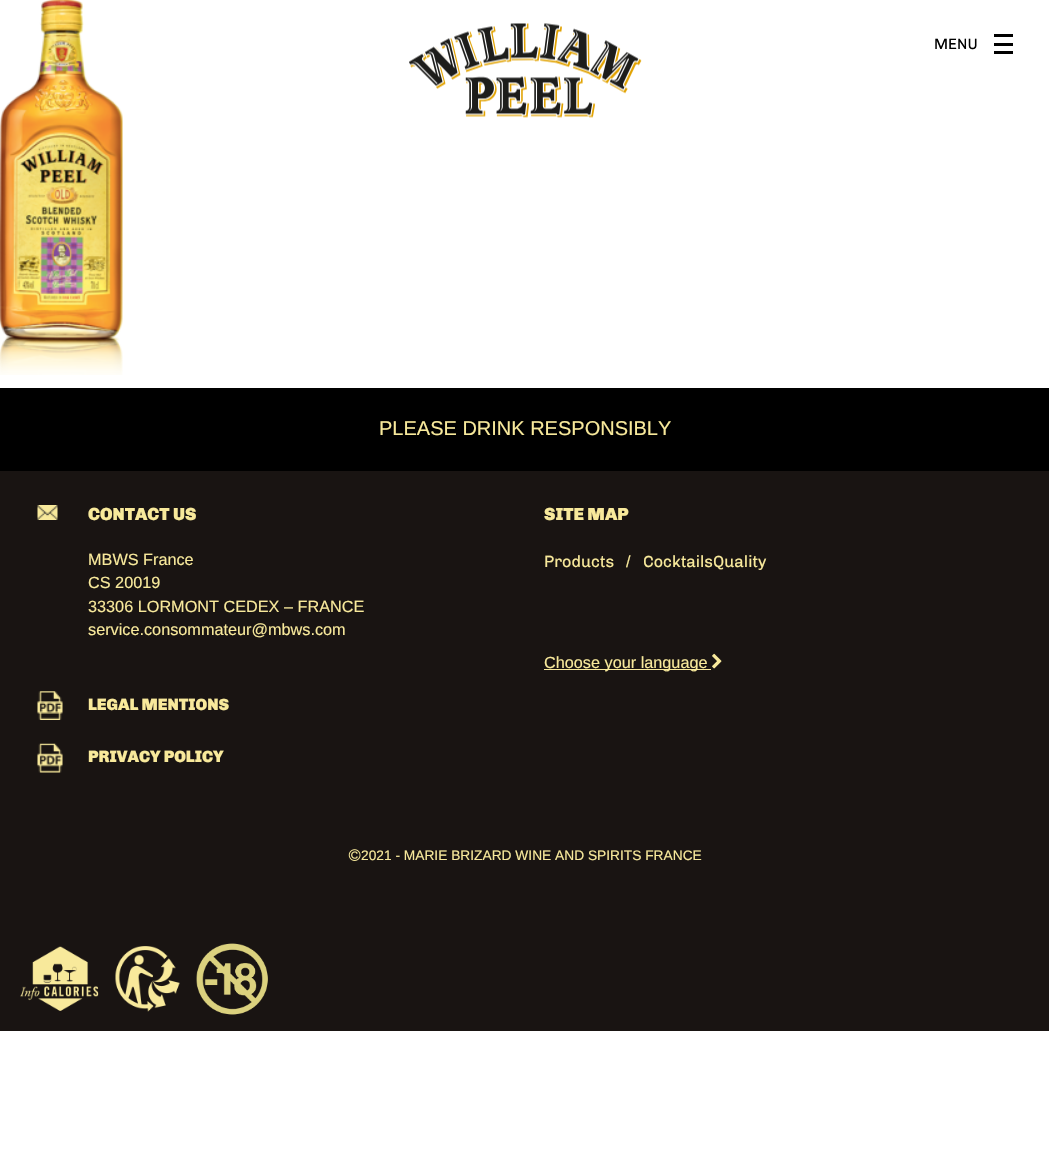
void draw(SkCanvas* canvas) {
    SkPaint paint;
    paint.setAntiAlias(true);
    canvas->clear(0xFFFFFFFF);
    canvas->drawImageRect(SkImages::DeferredFromEncodedData(SkData::MakeFromFileName("img1.png")), SkRect::MakeXYWH(0, 0, 123, 375), SkSamplingOptions());
    canvas->drawImageRect(SkImages::DeferredFromEncodedData(SkData::MakeFromFileName("img2.png")), SkRect::MakeXYWH(409, 23, 233, 95), SkSamplingOptions());
    SkFont font1(fontMgr->matchFamilyStyle("Chivo", SkFontStyle::Normal()), 15);
    font1.setSubpixel(true);
    paint.setColor(0xFF000000);
    canvas->drawString("MENU", 934, 49, font1, paint);
    canvas->drawRect(SkRect::MakeXYWH(994, 34, 19, 3), paint);
    canvas->drawRect(SkRect::MakeXYWH(994, 43, 19, 3), paint);
    canvas->drawRect(SkRect::MakeXYWH(994, 51, 19, 3), paint);
    paint.setColor(0xFF191412);
    canvas->drawRect(SkRect::MakeXYWH(0, 471, 1049, 560), paint);
    paint.setColor(0xFF000000);
    canvas->drawRect(SkRect::MakeXYWH(0, 388, 1049, 83), paint);
    SkFont font2(fontMgr->matchFamilyStyle("Liberation Sans", SkFontStyle::Normal()), 20);
    font2.setSubpixel(true);
    paint.setColor(0xFFF8E99B);
    canvas->drawString("PLEASE DRINK RESPONSIBLY", 379, 435, font2, paint);
    canvas->drawImageRect(SkImages::DeferredFromEncodedData(SkData::MakeFromFileName("img3.png")), SkRect::MakeXYWH(37, 505, 21, 15), SkSamplingOptions());
    SkFont font3(fontMgr->matchFamilyStyle("Chivo", SkFontStyle(900, SkFontStyle::kNormal_Width, SkFontStyle::kUpright_Slant)), 17.5f);
    font3.setSubpixel(true);
    canvas->drawString("CONTACT US", 88, 520, font3, paint);
    SkFont font4(fontMgr->matchFamilyStyle("Liberation Sans", SkFontStyle::Normal()), 16.25f);
    font4.setSubpixel(true);
    canvas->drawString("MBWS France", 88, 565, font4, paint);
    canvas->drawString("CS 20019", 88, 588, font4, paint);
    canvas->drawString("33306 LORMONT CEDEX – FRANCE", 88, 612, font4, paint);
    canvas->drawString("service.consommateur@mbws.com", 88, 635, font4, paint);
    canvas->drawImageRect(SkImages::DeferredFromEncodedData(SkData::MakeFromFileName("img4.png")), SkRect::MakeXYWH(37, 691, 26, 29), SkSamplingOptions());
    SkFont font5(fontMgr->matchFamilyStyle("Chivo", SkFontStyle(900, SkFontStyle::kNormal_Width, SkFontStyle::kUpright_Slant)), 16.25f);
    font5.setSubpixel(true);
    canvas->drawString("LEGAL MENTIONS", 88, 710, font5, paint);
    canvas->drawImageRect(SkImages::DeferredFromEncodedData(SkData::MakeFromFileName("img5.png")), SkRect::MakeXYWH(37, 743, 26, 30), SkSamplingOptions());
    canvas->drawString("PRIVACY POLICY", 88, 762, font5, paint);
    canvas->drawString("SITE MAP", 544, 520, font3, paint);
    SkFont font6(fontMgr->matchFamilyStyle("Chivo", SkFontStyle::Normal()), 16.25f);
    font6.setSubpixel(true);
    canvas->drawString("Products", 544, 567, font6, paint);
    canvas->drawString("/", 626, 567, font4, paint);
    canvas->drawString("CocktailsQuality", 643, 567, font6, paint);
    canvas->drawRect(SkRect::MakeXYWH(544, 669, 167, 1), paint);
    canvas->drawString("Choose your language", 544, 668, font4, paint);
    canvas->drawImageRect(SkImages::DeferredFromEncodedData(SkData::MakeFromFileName("img6.png")), SkRect::MakeXYWH(712, 653, 10, 16), SkSamplingOptions());
    canvas->drawImageRect(SkImages::DeferredFromEncodedData(SkData::MakeFromFileName("img7.png")), SkRect::MakeXYWH(348, 849, 13, 12), SkSamplingOptions());
    SkFont font7(fontMgr->matchFamilyStyle("Liberation Sans", SkFontStyle::Normal()), 13.75f);
    font7.setSubpixel(true);
    canvas->drawString("2021 - MARIE BRIZARD WINE AND SPIRITS FRANCE", 361, 860, font7, paint);
    canvas->drawImageRect(SkImages::DeferredFromEncodedData(SkData::MakeFromFileName("img8.png")), SkRect::MakeXYWH(20, 946, 79, 65), SkSamplingOptions());
    canvas->drawImageRect(SkImages::DeferredFromEncodedData(SkData::MakeFromFileName("img9.png")), SkRect::MakeXYWH(115, 946, 65, 66), SkSamplingOptions());
    canvas->drawImageRect(SkImages::DeferredFromEncodedData(SkData::MakeFromFileName("img10.png")), SkRect::MakeXYWH(196, 943, 72, 72), SkSamplingOptions());
}
